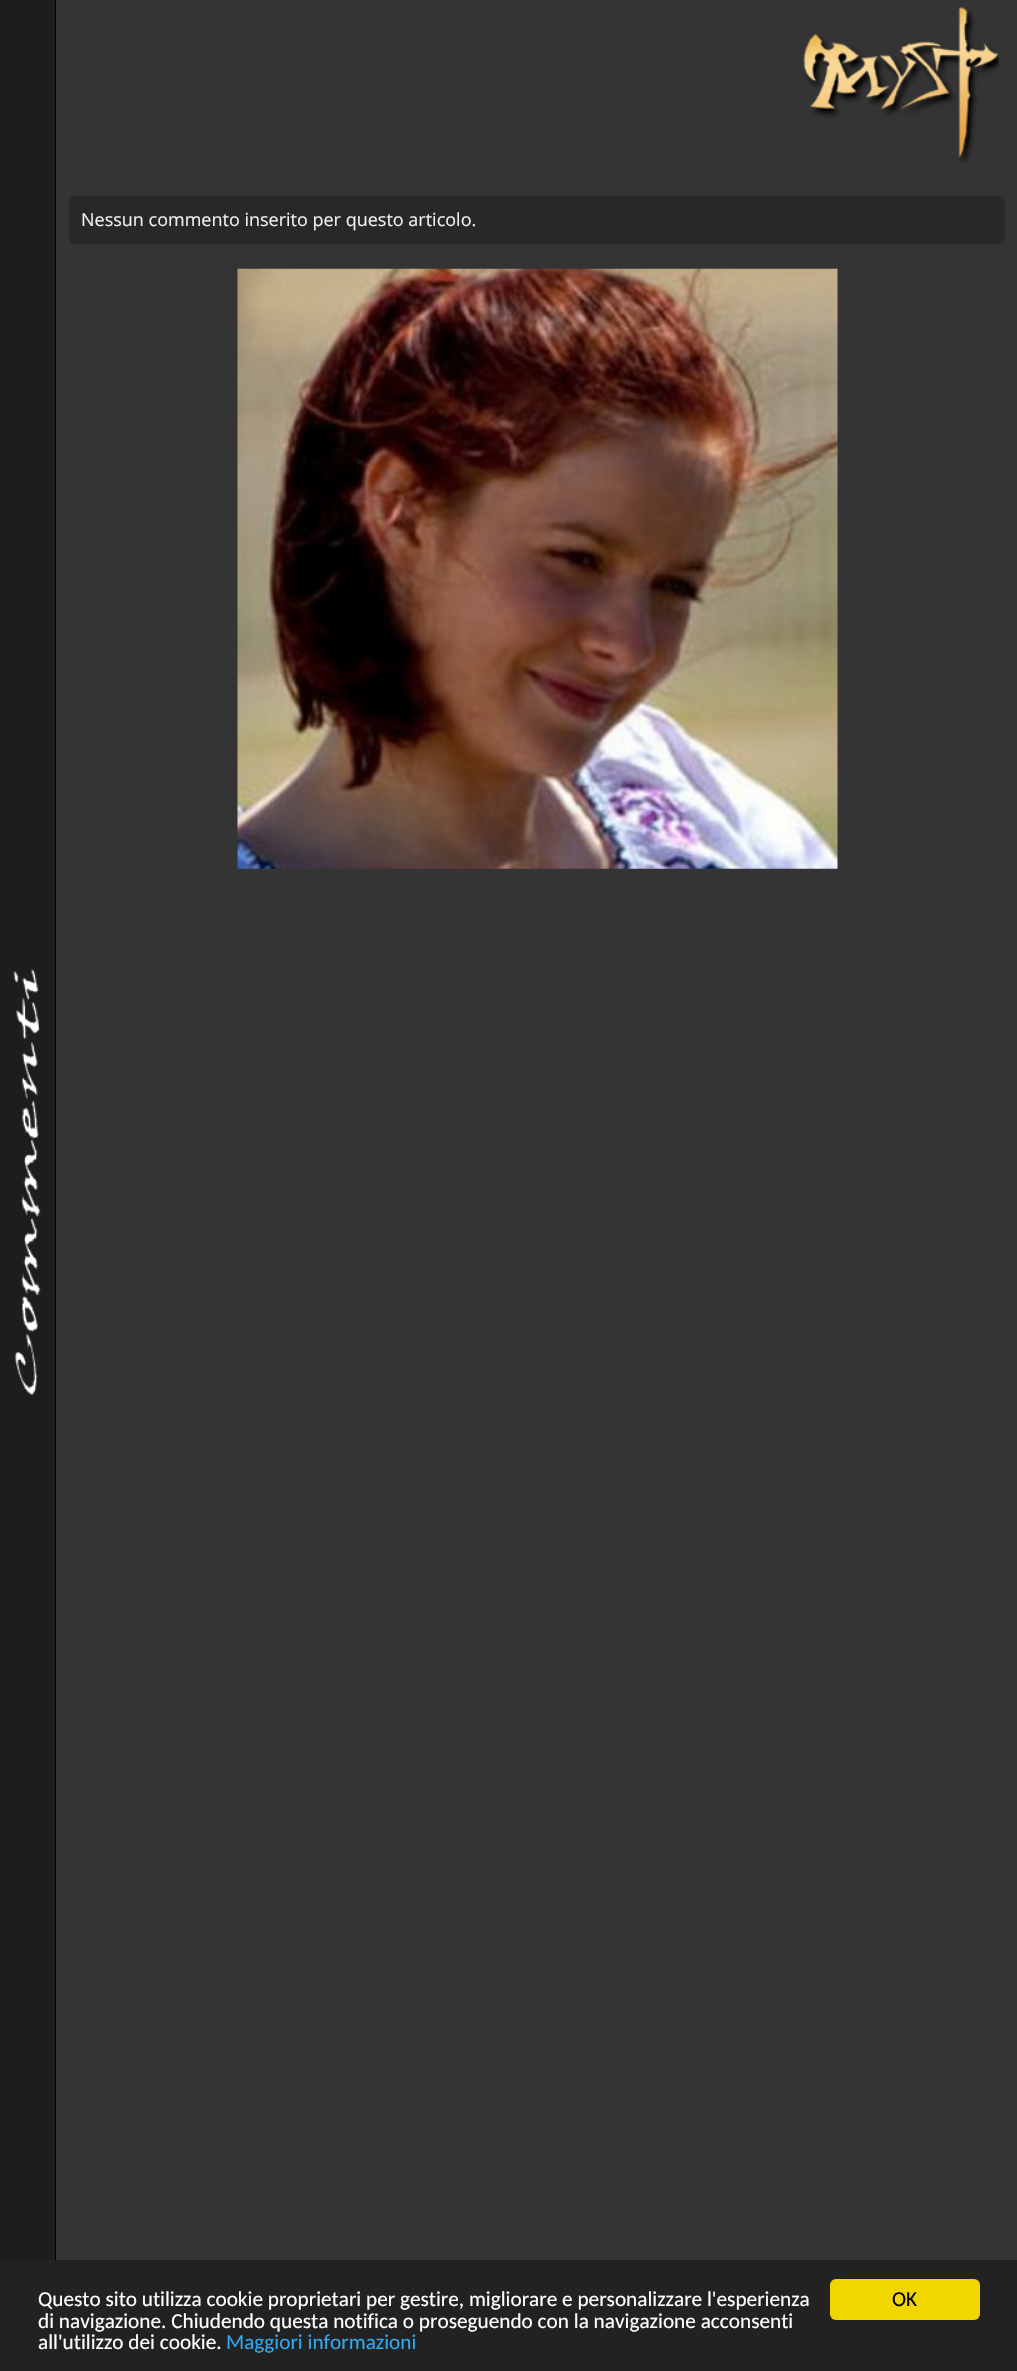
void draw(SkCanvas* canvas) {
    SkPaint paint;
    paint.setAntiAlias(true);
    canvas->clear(0xFF343434);
    paint.setColor(0xFF1D1D1D);
    canvas->drawRect(SkRect::MakeXYWH(0, 0, 55, 2260), paint);
    paint.setColor(0xFF000000);
    canvas->drawRect(SkRect::MakeXYWH(55, 0, 1, 2260), paint);
    canvas->drawImageRect(SkImages::DeferredFromEncodedData(SkData::MakeFromFileName("img1.png")), SkRect::MakeXYWH(13, 968, 28, 428), SkSamplingOptions());
    canvas->drawImageRect(SkImages::DeferredFromEncodedData(SkData::MakeFromFileName("img2.png")), SkRect::MakeXYWH(803, 7, 196, 156), SkSamplingOptions());
    paint.setColor(0xFF282828);
    canvas->drawRoundRect(SkRect::MakeXYWH(69, 196, 936, 48), 6, 6, paint);
    SkFont font1(fontMgr->matchFamilyStyle("Open Sans", SkFontStyle::Normal()), 18);
    font1.setSubpixel(true);
    paint.setColor(0xFFEFEFEF);
    canvas->drawString("Nessun commento inserito per questo articolo.", 81, 226, font1, paint);
    canvas->drawImageRect(SkImages::DeferredFromEncodedData(SkData::MakeFromFileName("img3.png")), SkRect::MakeXYWH(237, 268, 601, 601), SkSamplingOptions());
    paint.setColor(0xFF222222);
    canvas->drawRect(SkRect::MakeXYWH(0, 2260, 1017, 111), paint);
    SkFont font2(fontMgr->matchFamilyStyle("Carlito", SkFontStyle::Normal()), 21.25f);
    font2.setSubpixel(true);
    paint.setColor(0xFFFFFFFF);
    canvas->drawString("Questo sito utilizza cookie proprietari per gestire, migliorare e personalizzare l'esperienza", 38, 2306, font2, paint);
    canvas->drawString("di navigazione. Chiudendo questa notifica o proseguendo con la navigazione acconsenti", 38, 2328, font2, paint);
    canvas->drawString("all'utilizzo dei cookie.", 38, 2349, font2, paint);
    paint.setColor(0xFF31A8F0);
    canvas->drawString("Maggiori informazioni", 226, 2349, font2, paint);
    paint.setColor(0xFFF1D600);
    canvas->drawRoundRect(SkRect::MakeXYWH(830, 2279, 150, 41), 6, 6, paint);
    paint.setColor(0xFF000000);
    canvas->drawString("OK", 892, 2306, font2, paint);
}
